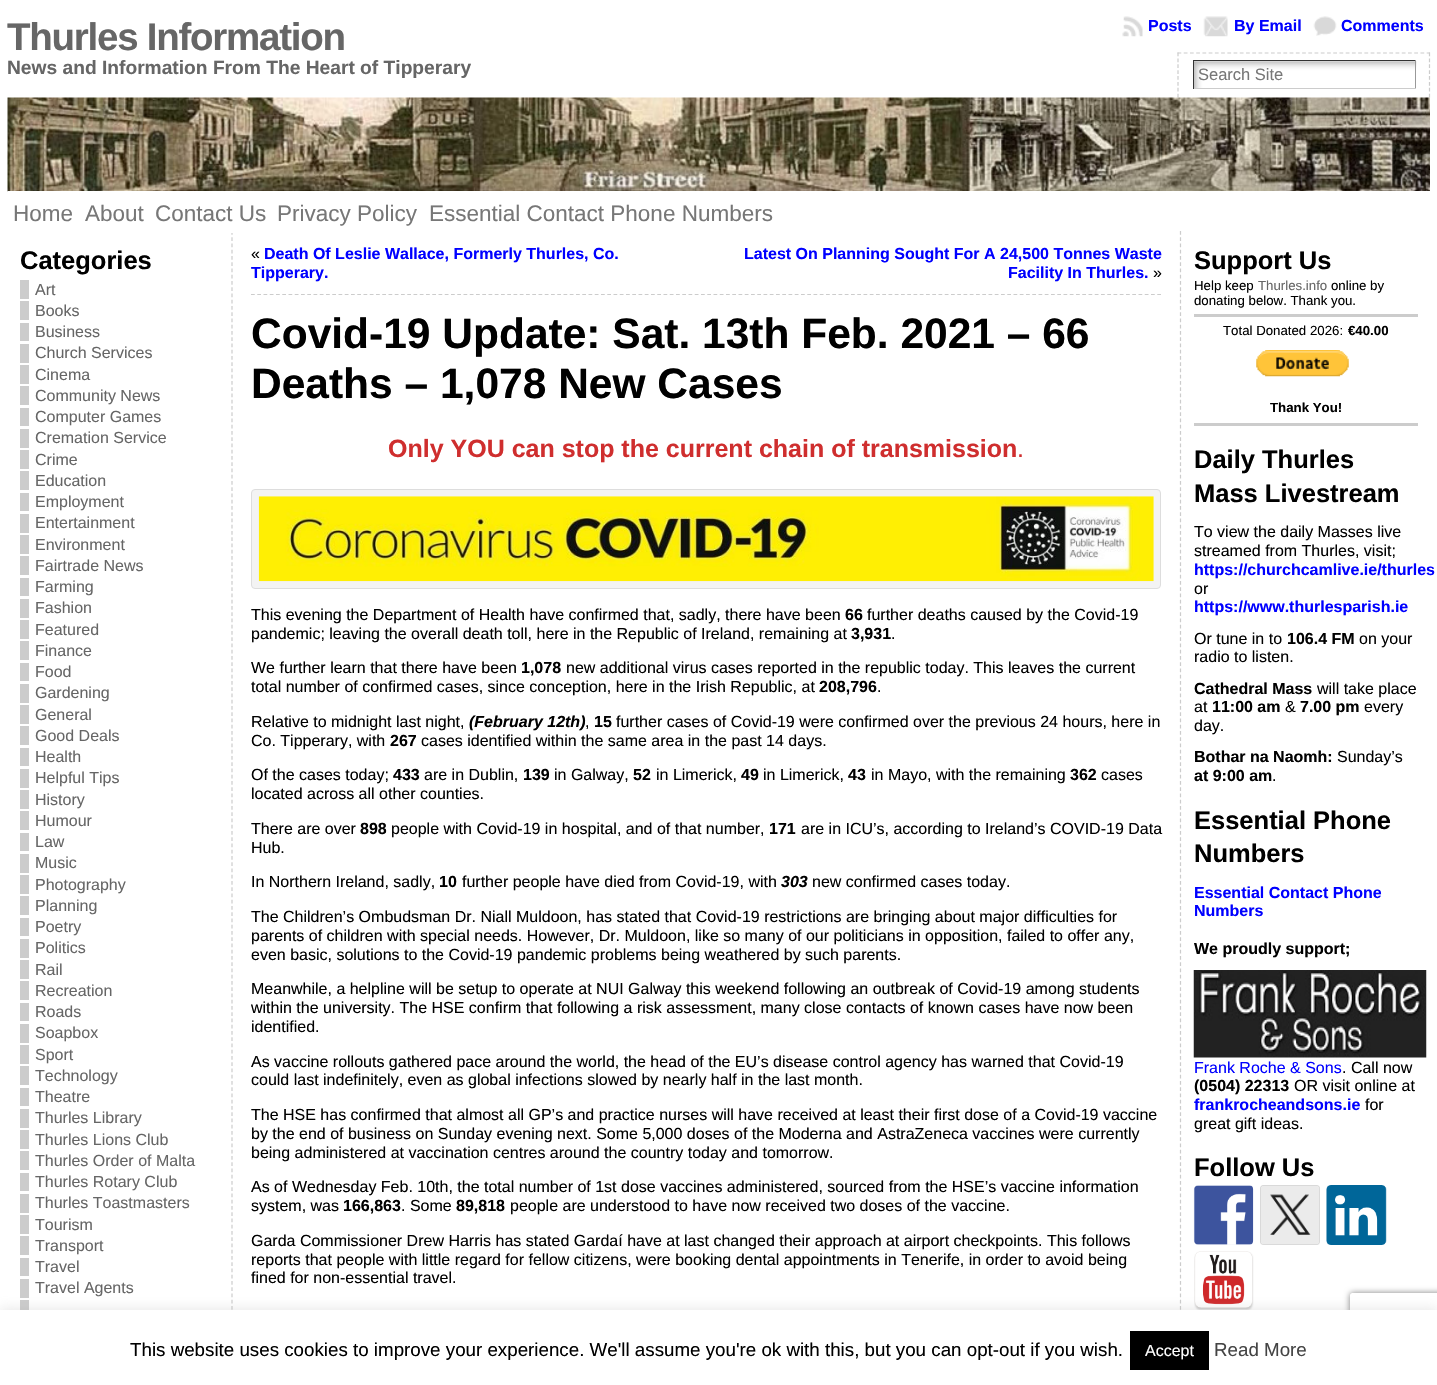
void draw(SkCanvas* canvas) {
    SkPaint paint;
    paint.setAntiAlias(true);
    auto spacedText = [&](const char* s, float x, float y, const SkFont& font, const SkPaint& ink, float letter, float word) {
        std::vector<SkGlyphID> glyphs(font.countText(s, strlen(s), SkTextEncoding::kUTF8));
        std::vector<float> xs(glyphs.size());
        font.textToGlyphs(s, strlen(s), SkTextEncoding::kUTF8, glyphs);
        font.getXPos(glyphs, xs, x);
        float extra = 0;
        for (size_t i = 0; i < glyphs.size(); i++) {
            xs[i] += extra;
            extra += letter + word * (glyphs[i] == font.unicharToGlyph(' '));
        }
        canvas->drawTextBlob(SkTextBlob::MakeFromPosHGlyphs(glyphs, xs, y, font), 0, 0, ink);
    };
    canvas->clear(0xFFFFFFFF);
    SkFont font1(fontMgr->matchFamilyStyle("Liberation Sans", SkFontStyle::Bold()), 38.5f);
    font1.setSubpixel(true);
    paint.setColor(0xFF666666);
    spacedText("Thurles Information", 7, 50, font1, paint, -1.25f, 0);
    SkFont font2(fontMgr->matchFamilyStyle("Liberation Sans", SkFontStyle::Bold()), 19.2f);
    font2.setSubpixel(true);
    canvas->drawString("News and Information From The Heart of Tipperary", 7, 74, font2, paint);
    canvas->drawImageRect(SkImages::DeferredFromEncodedData(SkData::MakeFromFileName("img1.png")), SkRect::MakeXYWH(1122, 16, 21, 21), SkSamplingOptions());
    SkFont font3(fontMgr->matchFamilyStyle("Liberation Sans", SkFontStyle::Bold()), 16);
    font3.setSubpixel(true);
    paint.setColor(0xFF0000FF);
    canvas->drawString("Posts", 1148, 31, font3, paint);
    canvas->drawImageRect(SkImages::DeferredFromEncodedData(SkData::MakeFromFileName("img2.png")), SkRect::MakeXYWH(1203, 16, 25, 21), SkSamplingOptions());
    canvas->drawString("By Email", 1234, 31, font3, paint);
    canvas->drawImageRect(SkImages::DeferredFromEncodedData(SkData::MakeFromFileName("img3.png")), SkRect::MakeXYWH(1313, 16, 24, 20), SkSamplingOptions());
    canvas->drawString("Comments", 1341, 31, font3, paint);
    paint.setStyle(SkPaint::kStroke_Style);
    paint.setStrokeWidth(1.2f);
    paint.setColor(0xFFCCCCCC);
    paint.setPathEffect(SkDashPathEffect::Make({{3.75f, 2.48f}}, 0));
    canvas->drawPath(SkPathBuilder().moveTo(1177.5f, 53).lineTo(1430, 53).detach(), paint);
    paint.setPathEffect(nullptr);
    paint.setPathEffect(SkDashPathEffect::Make({{3.75f, 2.14f}}, 0));
    canvas->drawPath(SkPathBuilder().moveTo(1429.5f, 52.5f).lineTo(1429.5f, 97.5f).detach(), paint);
    paint.setPathEffect(nullptr);
    paint.setPathEffect(SkDashPathEffect::Make({{3.75f, 2.14f}}, 0));
    canvas->drawPath(SkPathBuilder().moveTo(1178, 52.5f).lineTo(1178, 97.5f).detach(), paint);
    paint.setPathEffect(nullptr);
    canvas->drawImageRect(SkImages::DeferredFromEncodedData(SkData::MakeFromFileName("img4.png")), SkRect::MakeXYWH(1194, 61, 223, 28), SkSamplingOptions());
    paint.setStyle(SkPaint::kFill_Style);
    paint.setColor(0xFF333333);
    canvas->drawRect(SkRect::MakeXYWH(1193, 60, 223, 1), paint);
    paint.setColor(0xFF999999);
    canvas->drawRect(SkRect::MakeXYWH(1415, 60, 1, 29), paint);
    paint.setColor(0xFFCCCCCC);
    canvas->drawRect(SkRect::MakeXYWH(1193, 88, 223, 1), paint);
    paint.setColor(0xFF333333);
    canvas->drawRect(SkRect::MakeXYWH(1193, 60, 1, 29), paint);
    SkFont font4(fontMgr->matchFamilyStyle("Liberation Sans", SkFontStyle::Normal()), 16.5f);
    font4.setSubpixel(true);
    paint.setColor(0xFF777777);
    canvas->drawString("Search Site", 1198, 80, font4, paint);
    canvas->drawImageRect(SkImages::DeferredFromEncodedData(SkData::MakeFromFileName("img5.png")), SkRect::MakeXYWH(7, 97, 1423, 95), SkSamplingOptions());
    paint.setColor(0xFFFFFFFF);
    canvas->drawRect(SkRect::MakeXYWH(8, 191, 1422, 1), paint);
    SkFont font5(fontMgr->matchFamilyStyle("Liberation Sans", SkFontStyle::Normal()), 22.5f);
    font5.setSubpixel(true);
    paint.setColor(0xFF777777);
    canvas->drawString("Home", 13, 221, font5, paint);
    canvas->drawString("About", 85, 221, font5, paint);
    paint.setStyle(SkPaint::kStroke_Style);
    paint.setColor(0xFFCCCCCC);
    paint.setPathEffect(SkDashPathEffect::Make({{3.75f, 2.5f}}, 0));
    canvas->drawPath(SkPathBuilder().moveTo(232, 231).lineTo(232, 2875).detach(), paint);
    paint.setPathEffect(nullptr);
    paint.setStyle(SkPaint::kFill_Style);
    paint.setColor(0xFFFFFFFF);
    canvas->drawRect(SkRect::MakeXYWH(231, 231, 2, 2), paint);
    paint.setColor(0xFF777777);
    canvas->drawString("Contact Us", 155, 221, font5, paint);
    canvas->drawString("Privacy Policy", 277, 221, font5, paint);
    canvas->drawString("Essential Contact Phone Numbers", 429, 221, font5, paint);
    SkFont font6(fontMgr->matchFamilyStyle("Liberation Sans", SkFontStyle::Bold()), 25.5f);
    font6.setSubpixel(true);
    paint.setColor(0xFF000000);
    canvas->drawString("Categories", 20, 269, font6, paint);
    SkFont font7(fontMgr->matchFamilyStyle("Liberation Sans", SkFontStyle::Normal()), 16);
    font7.setSubpixel(true);
    paint.setColor(0xFF666666);
    canvas->drawString("Art", 35, 295, font7, paint);
    paint.setColor(0xFFCCCCCC);
    canvas->drawRect(SkRect::MakeXYWH(20, 280, 9, 19), paint);
    paint.setColor(0xFF666666);
    canvas->drawString("Books", 35, 316, font7, paint);
    paint.setColor(0xFFCCCCCC);
    canvas->drawRect(SkRect::MakeXYWH(20, 301, 9, 19), paint);
    paint.setColor(0xFF666666);
    canvas->drawString("Business", 35, 337, font7, paint);
    paint.setColor(0xFFCCCCCC);
    canvas->drawRect(SkRect::MakeXYWH(20, 323, 9, 18), paint);
    paint.setColor(0xFF666666);
    canvas->drawString("Church Services", 35, 358, font7, paint);
    paint.setColor(0xFFCCCCCC);
    canvas->drawRect(SkRect::MakeXYWH(20, 344, 9, 19), paint);
    paint.setColor(0xFF666666);
    canvas->drawString("Cinema", 35, 380, font7, paint);
    paint.setColor(0xFFCCCCCC);
    canvas->drawRect(SkRect::MakeXYWH(20, 365, 9, 19), paint);
    paint.setColor(0xFF666666);
    canvas->drawString("Community News", 35, 401, font7, paint);
    paint.setColor(0xFFCCCCCC);
    canvas->drawRect(SkRect::MakeXYWH(20, 386, 9, 19), paint);
    paint.setColor(0xFF666666);
    canvas->drawString("Computer Games", 35, 422, font7, paint);
    paint.setColor(0xFFCCCCCC);
    canvas->drawRect(SkRect::MakeXYWH(20, 408, 9, 18), paint);
    paint.setColor(0xFF666666);
    canvas->drawString("Cremation Service", 35, 443, font7, paint);
    paint.setColor(0xFFCCCCCC);
    canvas->drawRect(SkRect::MakeXYWH(20, 429, 9, 19), paint);
    paint.setColor(0xFF666666);
    canvas->drawString("Crime", 35, 465, font7, paint);
    paint.setColor(0xFFCCCCCC);
    canvas->drawRect(SkRect::MakeXYWH(20, 450, 9, 19), paint);
    paint.setColor(0xFF666666);
    canvas->drawString("Education", 35, 486, font7, paint);
    paint.setColor(0xFFCCCCCC);
    canvas->drawRect(SkRect::MakeXYWH(20, 471, 9, 19), paint);
    paint.setColor(0xFF666666);
    canvas->drawString("Employment", 35, 507, font7, paint);
    paint.setColor(0xFFCCCCCC);
    canvas->drawRect(SkRect::MakeXYWH(20, 493, 9, 18), paint);
    paint.setColor(0xFF666666);
    canvas->drawString("Entertainment", 35, 528, font7, paint);
    paint.setColor(0xFFCCCCCC);
    canvas->drawRect(SkRect::MakeXYWH(20, 514, 9, 19), paint);
    paint.setColor(0xFF666666);
    canvas->drawString("Environment", 35, 550, font7, paint);
    paint.setColor(0xFFCCCCCC);
    canvas->drawRect(SkRect::MakeXYWH(20, 535, 9, 19), paint);
    paint.setColor(0xFF666666);
    canvas->drawString("Fairtrade News", 35, 571, font7, paint);
    paint.setColor(0xFFCCCCCC);
    canvas->drawRect(SkRect::MakeXYWH(20, 556, 9, 19), paint);
    paint.setColor(0xFF666666);
    canvas->drawString("Farming", 35, 592, font7, paint);
    paint.setColor(0xFFCCCCCC);
    canvas->drawRect(SkRect::MakeXYWH(20, 578, 9, 18), paint);
    paint.setColor(0xFF666666);
    canvas->drawString("Fashion", 35, 613, font7, paint);
    paint.setColor(0xFFCCCCCC);
    canvas->drawRect(SkRect::MakeXYWH(20, 599, 9, 19), paint);
    paint.setColor(0xFF666666);
    canvas->drawString("Featured", 35, 635, font7, paint);
    paint.setColor(0xFFCCCCCC);
    canvas->drawRect(SkRect::MakeXYWH(20, 620, 9, 19), paint);
    paint.setColor(0xFF666666);
    canvas->drawString("Finance", 35, 656, font7, paint);
    paint.setColor(0xFFCCCCCC);
    canvas->drawRect(SkRect::MakeXYWH(20, 641, 9, 19), paint);
    paint.setColor(0xFF666666);
    canvas->drawString("Food", 35, 677, font7, paint);
    paint.setColor(0xFFCCCCCC);
    canvas->drawRect(SkRect::MakeXYWH(20, 663, 9, 18), paint);
    paint.setColor(0xFF666666);
    canvas->drawString("Gardening", 35, 698, font7, paint);
    paint.setColor(0xFFCCCCCC);
    canvas->drawRect(SkRect::MakeXYWH(20, 684, 9, 19), paint);
    paint.setColor(0xFF666666);
    canvas->drawString("General", 35, 720, font7, paint);
    paint.setColor(0xFFCCCCCC);
    canvas->drawRect(SkRect::MakeXYWH(20, 705, 9, 19), paint);
    paint.setColor(0xFF666666);
    canvas->drawString("Good Deals", 35, 741, font7, paint);
    paint.setColor(0xFFCCCCCC);
    canvas->drawRect(SkRect::MakeXYWH(20, 726, 9, 19), paint);
    paint.setColor(0xFF666666);
    canvas->drawString("Health", 35, 762, font7, paint);
    paint.setColor(0xFFCCCCCC);
    canvas->drawRect(SkRect::MakeXYWH(20, 748, 9, 18), paint);
    paint.setColor(0xFF666666);
    canvas->drawString("Helpful Tips", 35, 783, font7, paint);
    paint.setColor(0xFFCCCCCC);
    canvas->drawRect(SkRect::MakeXYWH(20, 769, 9, 19), paint);
    paint.setColor(0xFF666666);
    canvas->drawString("History", 35, 805, font7, paint);
    paint.setColor(0xFFCCCCCC);
    canvas->drawRect(SkRect::MakeXYWH(20, 790, 9, 19), paint);
    paint.setColor(0xFF666666);
    canvas->drawString("Humour", 35, 826, font7, paint);
    paint.setColor(0xFFCCCCCC);
    canvas->drawRect(SkRect::MakeXYWH(20, 811, 9, 19), paint);
    paint.setColor(0xFF666666);
    canvas->drawString("Law", 35, 847, font7, paint);
    paint.setColor(0xFFCCCCCC);
    canvas->drawRect(SkRect::MakeXYWH(20, 833, 9, 18), paint);
    paint.setColor(0xFF666666);
    canvas->drawString("Music", 35, 868, font7, paint);
    paint.setColor(0xFFCCCCCC);
    canvas->drawRect(SkRect::MakeXYWH(20, 854, 9, 19), paint);
    paint.setColor(0xFF666666);
    canvas->drawString("Photography", 35, 890, font7, paint);
    paint.setColor(0xFFCCCCCC);
    canvas->drawRect(SkRect::MakeXYWH(20, 875, 9, 19), paint);
    paint.setColor(0xFF666666);
    canvas->drawString("Planning", 35, 911, font7, paint);
    paint.setColor(0xFFCCCCCC);
    canvas->drawRect(SkRect::MakeXYWH(20, 896, 9, 19), paint);
    paint.setColor(0xFF666666);
    canvas->drawString("Poetry", 35, 932, font7, paint);
    paint.setColor(0xFFCCCCCC);
    canvas->drawRect(SkRect::MakeXYWH(20, 918, 9, 18), paint);
    paint.setColor(0xFF666666);
    canvas->drawString("Politics", 35, 953, font7, paint);
    paint.setColor(0xFFCCCCCC);
    canvas->drawRect(SkRect::MakeXYWH(20, 939, 9, 19), paint);
    paint.setColor(0xFF666666);
    canvas->drawString("Rail", 35, 975, font7, paint);
    paint.setColor(0xFFCCCCCC);
    canvas->drawRect(SkRect::MakeXYWH(20, 960, 9, 19), paint);
    paint.setColor(0xFF666666);
    canvas->drawString("Recreation", 35, 996, font7, paint);
    paint.setColor(0xFFCCCCCC);
    canvas->drawRect(SkRect::MakeXYWH(20, 981, 9, 19), paint);
    paint.setColor(0xFF666666);
    canvas->drawString("Roads", 35, 1017, font7, paint);
    paint.setColor(0xFFCCCCCC);
    canvas->drawRect(SkRect::MakeXYWH(20, 1003, 9, 18), paint);
    paint.setColor(0xFF666666);
    canvas->drawString("Soapbox", 35, 1038, font7, paint);
    paint.setColor(0xFFCCCCCC);
    canvas->drawRect(SkRect::MakeXYWH(20, 1024, 9, 19), paint);
    paint.setColor(0xFF666666);
    canvas->drawString("Sport", 35, 1060, font7, paint);
    paint.setColor(0xFFCCCCCC);
    canvas->drawRect(SkRect::MakeXYWH(20, 1045, 9, 19), paint);
    paint.setColor(0xFF666666);
    canvas->drawString("Technology", 35, 1081, font7, paint);
    paint.setColor(0xFFCCCCCC);
    canvas->drawRect(SkRect::MakeXYWH(20, 1066, 9, 19), paint);
    paint.setColor(0xFF666666);
    canvas->drawString("Theatre", 35, 1102, font7, paint);
    paint.setColor(0xFFCCCCCC);
    canvas->drawRect(SkRect::MakeXYWH(20, 1088, 9, 18), paint);
    paint.setColor(0xFF666666);
    canvas->drawString("Thurles Library", 35, 1123, font7, paint);
    paint.setColor(0xFFCCCCCC);
    canvas->drawRect(SkRect::MakeXYWH(20, 1109, 9, 19), paint);
    paint.setColor(0xFF666666);
    canvas->drawString("Thurles Lions Club", 35, 1145, font7, paint);
    paint.setColor(0xFFCCCCCC);
    canvas->drawRect(SkRect::MakeXYWH(20, 1130, 9, 19), paint);
    paint.setColor(0xFF666666);
    canvas->drawString("Thurles Order of Malta", 35, 1166, font7, paint);
    paint.setColor(0xFFCCCCCC);
    canvas->drawRect(SkRect::MakeXYWH(20, 1151, 9, 19), paint);
    paint.setColor(0xFF666666);
    canvas->drawString("Thurles Rotary Club", 35, 1187, font7, paint);
    paint.setColor(0xFFCCCCCC);
    canvas->drawRect(SkRect::MakeXYWH(20, 1173, 9, 18), paint);
    paint.setColor(0xFF666666);
    canvas->drawString("Thurles Toastmasters", 35, 1208, font7, paint);
    paint.setColor(0xFFCCCCCC);
    canvas->drawRect(SkRect::MakeXYWH(20, 1194, 9, 19), paint);
    paint.setColor(0xFF666666);
    canvas->drawString("Tourism", 35, 1230, font7, paint);
    paint.setColor(0xFFCCCCCC);
    canvas->drawRect(SkRect::MakeXYWH(20, 1215, 9, 19), paint);
    paint.setColor(0xFF666666);
    canvas->drawString("Transport", 35, 1251, font7, paint);
    paint.setColor(0xFFCCCCCC);
    canvas->drawRect(SkRect::MakeXYWH(20, 1236, 9, 19), paint);
    paint.setColor(0xFF666666);
    canvas->drawString("Travel", 35, 1272, font7, paint);
    paint.setColor(0xFFCCCCCC);
    canvas->drawRect(SkRect::MakeXYWH(20, 1258, 9, 18), paint);
    paint.setColor(0xFF666666);
    canvas->drawString("Travel Agents", 35, 1293, font7, paint);
    paint.setColor(0xFFCCCCCC);
    canvas->drawRect(SkRect::MakeXYWH(20, 1279, 9, 19), paint);
    canvas->drawRect(SkRect::MakeXYWH(20, 1300, 9, 10), paint);
    paint.setStyle(SkPaint::kStroke_Style);
    paint.setPathEffect(SkDashPathEffect::Make({{3.75f, 2.5f}}, 0));
    canvas->drawPath(SkPathBuilder().moveTo(251, 294.5f).lineTo(1161, 294.5f).detach(), paint);
    paint.setPathEffect(nullptr);
    paint.setStyle(SkPaint::kFill_Style);
    paint.setColor(0xFF000000);
    canvas->drawString("«", 251, 259, font7, paint);
    paint.setColor(0xFF0000FF);
    canvas->drawString("Death Of Leslie Wallace, Formerly Thurles, Co.", 264, 259, font3, paint);
    canvas->drawString("Tipperary.", 251, 278, font3, paint);
    canvas->drawString("Latest On Planning Sought For A 24,500 Tonnes Waste", 744, 259, font3, paint);
    canvas->drawString("Facility In Thurles.", 1008, 278, font3, paint);
    paint.setColor(0xFF000000);
    canvas->drawString("»", 1153, 278, font7, paint);
    SkFont font8(fontMgr->matchFamilyStyle("Liberation Sans", SkFontStyle::Bold()), 42.5f);
    font8.setSubpixel(true);
    canvas->drawString("Covid-19 Update: Sat. 13th Feb. 2021 – 66", 251, 348, font8, paint);
    canvas->drawString("Deaths – 1,078 New Cases", 251, 398, font8, paint);
    SkFont font9(fontMgr->matchFamilyStyle("Liberation Sans", SkFontStyle::Bold()), 25);
    font9.setSubpixel(true);
    paint.setColor(0xFFCF2E2E);
    canvas->drawString("Only YOU can stop the current chain of transmission", 388, 457, font9, paint);
    SkFont font10(fontMgr->matchFamilyStyle("Liberation Sans", SkFontStyle::Normal()), 25);
    font10.setSubpixel(true);
    canvas->drawString(".", 1017, 457, font10, paint);
    paint.setColor(0xFFF3F3F3);
    canvas->drawRoundRect(SkRect::MakeXYWH(251.5f, 489.5f, 909, 99), 3.5f, 3.5f, paint);
    paint.setStyle(SkPaint::kStroke_Style);
    paint.setStrokeWidth(1);
    paint.setColor(0xFFDDDDDD);
    canvas->drawRoundRect(SkRect::MakeXYWH(251.5f, 489.5f, 909, 99), 3.5f, 3.5f, paint);
    canvas->drawImageRect(SkImages::DeferredFromEncodedData(SkData::MakeFromFileName("img6.png")), SkRect::MakeXYWH(258, 496, 896, 86), SkSamplingOptions());
    paint.setStyle(SkPaint::kFill_Style);
    paint.setColor(0xFF000000);
    canvas->drawString("This evening the Department of Health have confirmed that, sadly, there have been", 251, 620, font7, paint);
    canvas->drawString("66", 845, 620, font3, paint);
    canvas->drawString("further deaths caused by the Covid-19", 867, 620, font7, paint);
    canvas->drawString("pandemic; leaving the overall death toll, here in the Republic of Ireland, remaining at", 251, 639, font7, paint);
    canvas->drawString("3,931", 851, 639, font3, paint);
    canvas->drawString(".", 891, 639, font7, paint);
    canvas->drawString("We further learn that there have been", 251, 673, font7, paint);
    canvas->drawString("1,078", 521, 673, font3, paint);
    canvas->drawString("new additional virus cases reported in the republic today. This leaves the current", 566, 673, font7, paint);
    canvas->drawString("total number of confirmed cases, since conception, here in the Irish Republic, at", 251, 692, font7, paint);
    canvas->drawString("208,796", 819, 692, font3, paint);
    canvas->drawString(".", 877, 692, font7, paint);
    canvas->drawString("Relative to midnight last night,", 251, 727, font7, paint);
    SkFont font11(fontMgr->matchFamilyStyle("Liberation Sans", SkFontStyle::BoldItalic()), 16);
    font11.setSubpixel(true);
    canvas->drawString("(February 12th)", 469, 727, font11, paint);
    canvas->drawString(",", 585, 727, font7, paint);
    canvas->drawString("15", 594, 727, font3, paint);
    canvas->drawString("further cases of Covid-19 were confirmed over the previous 24 hours, here in", 616, 727, font7, paint);
    canvas->drawString("Co. Tipperary, with", 251, 746, font7, paint);
    canvas->drawString("267", 390, 746, font3, paint);
    canvas->drawString("cases identified within the same area in the past 14 days.", 421, 746, font7, paint);
    canvas->drawString("Of the cases today;", 251, 780, font7, paint);
    canvas->drawString("433", 393, 780, font3, paint);
    canvas->drawString("are in Dublin,", 424, 780, font7, paint);
    canvas->drawString("139", 523, 780, font3, paint);
    canvas->drawString("in Galway,", 554, 780, font7, paint);
    canvas->drawString("52", 633, 780, font3, paint);
    canvas->drawString("in Limerick,", 656, 780, font7, paint);
    canvas->drawString("49", 741, 780, font3, paint);
    canvas->drawString("in Limerick,", 763, 780, font7, paint);
    canvas->drawString("43", 848, 780, font3, paint);
    canvas->drawString("in Mayo, with the remaining", 871, 780, font7, paint);
    canvas->drawString("362", 1070, 780, font3, paint);
    canvas->drawString("cases", 1101, 780, font7, paint);
    canvas->drawString("located across all other counties.", 251, 799, font7, paint);
    canvas->drawString("There are over", 251, 834, font7, paint);
    canvas->drawString("898", 360, 834, font3, paint);
    canvas->drawString("people with Covid-19 in hospital, and of that number,", 391, 834, font7, paint);
    canvas->drawString("171", 769, 834, font3, paint);
    canvas->drawString("are in ICU’s, according to Ireland’s COVID-19 Data", 801, 834, font7, paint);
    canvas->drawString("Hub.", 251, 853, font7, paint);
    canvas->drawString("In Northern Ireland, sadly,", 251, 887, font7, paint);
    canvas->drawString("10", 439, 887, font3, paint);
    canvas->drawString("further people have died from Covid-19, with", 462, 887, font7, paint);
    canvas->drawString("303", 781, 887, font11, paint);
    canvas->drawString("new confirmed cases today.", 812, 887, font7, paint);
    canvas->drawString("The Children’s Ombudsman Dr. Niall Muldoon, has stated that Covid-19 restrictions are bringing about major difficulties for", 251, 922, font7, paint);
    canvas->drawString("parents of children with special needs. However, Dr. Muldoon, like so many of our politicians in opposition, failed to offer any,", 251, 941, font7, paint);
    canvas->drawString("even basic, solutions to the Covid-19 pandemic problems being weathered by such parents.", 251, 960, font7, paint);
    canvas->drawString("Meanwhile, a helpline will be setup to operate at NUI Galway this weekend following an outbreak of Covid-19 among students", 251, 994, font7, paint);
    canvas->drawString("within the university. The HSE confirm that following a risk assessment, many close contacts of known cases have now been", 251, 1013, font7, paint);
    canvas->drawString("identified.", 251, 1032, font7, paint);
    canvas->drawString("As vaccine rollouts gathered pace around the world, the head of the EU’s disease control agency has warned that Covid-19", 251, 1067, font7, paint);
    canvas->drawString("could last indefinitely, even as global infections slowed by nearly half in the last month.", 251, 1085, font7, paint);
    canvas->drawString("The HSE has confirmed that almost all GP’s and practice nurses will have received at least their first dose of a Covid-19 vaccine", 251, 1120, font7, paint);
    canvas->drawString("by the end of business on Sunday evening next. Some 5,000 doses of the Moderna and AstraZeneca vaccines were currently", 251, 1139, font7, paint);
    canvas->drawString("being administered at vaccination centres around the country today and tomorrow.", 251, 1158, font7, paint);
    canvas->drawString("As of Wednesday Feb. 10th, the total number of 1st dose vaccines administered, sourced from the HSE’s vaccine information", 251, 1192, font7, paint);
    canvas->drawString("system, was", 251, 1211, font7, paint);
    canvas->drawString("166,863", 343, 1211, font3, paint);
    canvas->drawString(". Some", 401, 1211, font7, paint);
    canvas->drawString("89,818", 456, 1211, font3, paint);
    canvas->drawString("people are understood to have now received two doses of the vaccine.", 510, 1211, font7, paint);
    canvas->drawString("Garda Commissioner Drew Harris has stated Gardaí have at last changed their approach at airport checkpoints. This follows", 251, 1246, font7, paint);
    canvas->drawString("reports that people with little regard for fellow citizens, were booking dental appointments in Tenerife, in order to avoid being", 251, 1265, font7, paint);
    canvas->drawString("fined for non-essential travel.", 251, 1283, font7, paint);
    paint.setStyle(SkPaint::kStroke_Style);
    paint.setStrokeWidth(1.2f);
    paint.setColor(0xFFCCCCCC);
    paint.setPathEffect(SkDashPathEffect::Make({{3.75f, 2.5f}}, 0));
    canvas->drawPath(SkPathBuilder().moveTo(1180.5f, 231).lineTo(1180.5f, 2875).detach(), paint);
    paint.setPathEffect(nullptr);
    paint.setStyle(SkPaint::kFill_Style);
    paint.setColor(0xFF000000);
    canvas->drawString("Support Us", 1194, 269, font6, paint);
    SkFont font12(fontMgr->matchFamilyStyle("Liberation Sans", SkFontStyle::Normal()), 13.25f);
    font12.setSubpixel(true);
    canvas->drawString("Help keep", 1194, 290, font12, paint);
    paint.setColor(0xFF666666);
    canvas->drawString("Thurles.info", 1258, 290, font12, paint);
    paint.setColor(0xFF000000);
    canvas->drawString("online by", 1331, 290, font12, paint);
    canvas->drawString("donating below. Thank you.", 1194, 305, font12, paint);
    paint.setColor(0xFFCCCCCC);
    canvas->drawRect(SkRect::MakeXYWH(1194, 314, 224, 3), paint);
    paint.setColor(0xFF000000);
    canvas->drawString("Total Donated 2026:", 1223, 335, font12, paint);
    SkFont font13(fontMgr->matchFamilyStyle("Liberation Sans", SkFontStyle::Bold()), 13.25f);
    font13.setSubpixel(true);
    canvas->drawString("€40.00", 1348, 335, font13, paint);
    canvas->drawImageRect(SkImages::DeferredFromEncodedData(SkData::MakeFromFileName("img7.png")), SkRect::MakeXYWH(1256, 350, 93, 27), SkSamplingOptions());
    canvas->drawString("Thank You!", 1270, 412, font13, paint);
    paint.setColor(0xFFCCCCCC);
    canvas->drawRect(SkRect::MakeXYWH(1194, 423, 224, 3), paint);
    paint.setColor(0xFF000000);
    canvas->drawString("Daily Thurles", 1194, 468, font6, paint);
    canvas->drawString("Mass Livestream", 1194, 502, font6, paint);
    canvas->drawString("To view the daily Masses live", 1194, 537, font7, paint);
    canvas->drawString("streamed from Thurles, visit;", 1194, 556, font7, paint);
    paint.setColor(0xFF0000FF);
    canvas->drawString("https://churchcamlive.ie/thurles", 1194, 575, font3, paint);
    paint.setColor(0xFF000000);
    canvas->drawString("or", 1194, 594, font7, paint);
    paint.setColor(0xFF0000FF);
    canvas->drawString("https://www.thurlesparish.ie", 1194, 612, font3, paint);
    paint.setColor(0xFF000000);
    canvas->drawString("Or tune in to", 1194, 644, font7, paint);
    canvas->drawString("106.4 FM", 1287, 644, font3, paint);
    canvas->drawString("on your", 1359, 644, font7, paint);
    canvas->drawString("radio to listen.", 1194, 662, font7, paint);
    canvas->drawString("Cathedral Mass", 1194, 694, font3, paint);
    canvas->drawString("will take place", 1317, 694, font7, paint);
    canvas->drawString("at", 1194, 712, font7, paint);
    canvas->drawString("11:00 am", 1212, 712, font3, paint);
    canvas->drawString("&", 1285, 712, font7, paint);
    canvas->drawString("7.00 pm", 1300, 712, font3, paint);
    canvas->drawString("every", 1364, 712, font7, paint);
    canvas->drawString("day.", 1194, 731, font7, paint);
    canvas->drawString("Bothar na Naomh:", 1194, 762, font3, paint);
    canvas->drawString("Sunday’s", 1337, 762, font7, paint);
    canvas->drawString("at 9:00 am", 1194, 781, font3, paint);
    canvas->drawString(".", 1272, 781, font7, paint);
    canvas->drawString("Essential Phone", 1194, 829, font6, paint);
    canvas->drawString("Numbers", 1194, 862, font6, paint);
    paint.setColor(0xFF0000FF);
    canvas->drawString("Essential Contact Phone", 1194, 898, font3, paint);
    canvas->drawString("Numbers", 1194, 916, font3, paint);
    paint.setColor(0xFF000000);
    canvas->drawString("We proudly support;", 1194, 954, font3, paint);
    canvas->drawImageRect(SkImages::DeferredFromEncodedData(SkData::MakeFromFileName("img8.png")), SkRect::MakeXYWH(1193, 970, 234, 88), SkSamplingOptions());
    paint.setColor(0xFF0000FF);
    canvas->drawString("Frank Roche & Sons", 1194, 1073, font7, paint);
    paint.setColor(0xFF000000);
    canvas->drawString(". Call now", 1342, 1073, font7, paint);
    canvas->drawString("(0504) 22313", 1194, 1091, font3, paint);
    canvas->drawString("OR visit online at", 1294, 1091, font7, paint);
    paint.setColor(0xFF0000FF);
    canvas->drawString("frankrocheandsons.ie", 1194, 1110, font3, paint);
    paint.setColor(0xFF000000);
    canvas->drawString("for", 1365, 1110, font7, paint);
    canvas->drawString("great gift ideas.", 1194, 1129, font7, paint);
    canvas->drawString("Follow Us", 1194, 1176, font6, paint);
    canvas->drawImageRect(SkImages::DeferredFromEncodedData(SkData::MakeFromFileName("img9.png")), SkRect::MakeXYWH(1193, 1185, 61, 60), SkSamplingOptions());
    canvas->drawImageRect(SkImages::DeferredFromEncodedData(SkData::MakeFromFileName("img10.png")), SkRect::MakeXYWH(1260, 1185, 60, 60), SkSamplingOptions());
    canvas->drawImageRect(SkImages::DeferredFromEncodedData(SkData::MakeFromFileName("img11.png")), SkRect::MakeXYWH(1326, 1185, 61, 60), SkSamplingOptions());
    canvas->drawImageRect(SkImages::DeferredFromEncodedData(SkData::MakeFromFileName("img12.png")), SkRect::MakeXYWH(1194, 1251, 60, 59), SkSamplingOptions());
    paint.setColor(0x4DACABAB);
    paint.setMaskFilter(SkMaskFilter::MakeBlur(kNormal_SkBlurStyle, 6));
    canvas->drawRect(SkRect::MakeXYWH(0, 1309, 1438, 75), paint);
    paint.setMaskFilter(nullptr);
    canvas->save();
    canvas->clipPath(SkPathBuilder(SkPathFillType::kEvenOdd).moveTo(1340, 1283).lineTo(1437, 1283).lineTo(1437, 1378).lineTo(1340, 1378).close().moveTo(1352.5f, 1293).lineTo(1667.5f, 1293).cubicTo(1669, 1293, 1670, 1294, 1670, 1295.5f).lineTo(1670, 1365.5f).cubicTo(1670, 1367, 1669, 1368, 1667.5f, 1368).lineTo(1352.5f, 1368).cubicTo(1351, 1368, 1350, 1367, 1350, 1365.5f).lineTo(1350, 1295.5f).cubicTo(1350, 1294, 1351, 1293, 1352.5f, 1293).close().detach(), true);
    paint.setColor(0xFF808080);
    paint.setMaskFilter(SkMaskFilter::MakeBlur(kNormal_SkBlurStyle, 3));
    canvas->drawRoundRect(SkRect::MakeXYWH(1350, 1293, 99, 75), 2.5f, 2.5f, paint);
    paint.setMaskFilter(nullptr);
    canvas->restore();
    paint.setColor(0xFFFFFFFF);
    canvas->drawRect(SkRect::MakeXYWH(0, 1310, 1437, 75), paint);
    SkFont font14(fontMgr->matchFamilyStyle("Liberation Sans", SkFontStyle::Normal()), 18.75f);
    font14.setSubpixel(true);
    paint.setColor(0xFF000000);
    canvas->drawString("This website uses cookies to improve your experience. We'll assume you're ok with this, but you can opt-out if you wish.", 130, 1356, font14, paint);
    canvas->drawRect(SkRect::MakeXYWH(1130, 1331, 79, 39), paint);
    paint.setColor(0xFFFFFFFF);
    canvas->drawString("Accept", 1145, 1356, font7, paint);
    paint.setColor(0xFF444444);
    canvas->drawString("Read More", 1214, 1356, font14, paint);
}
